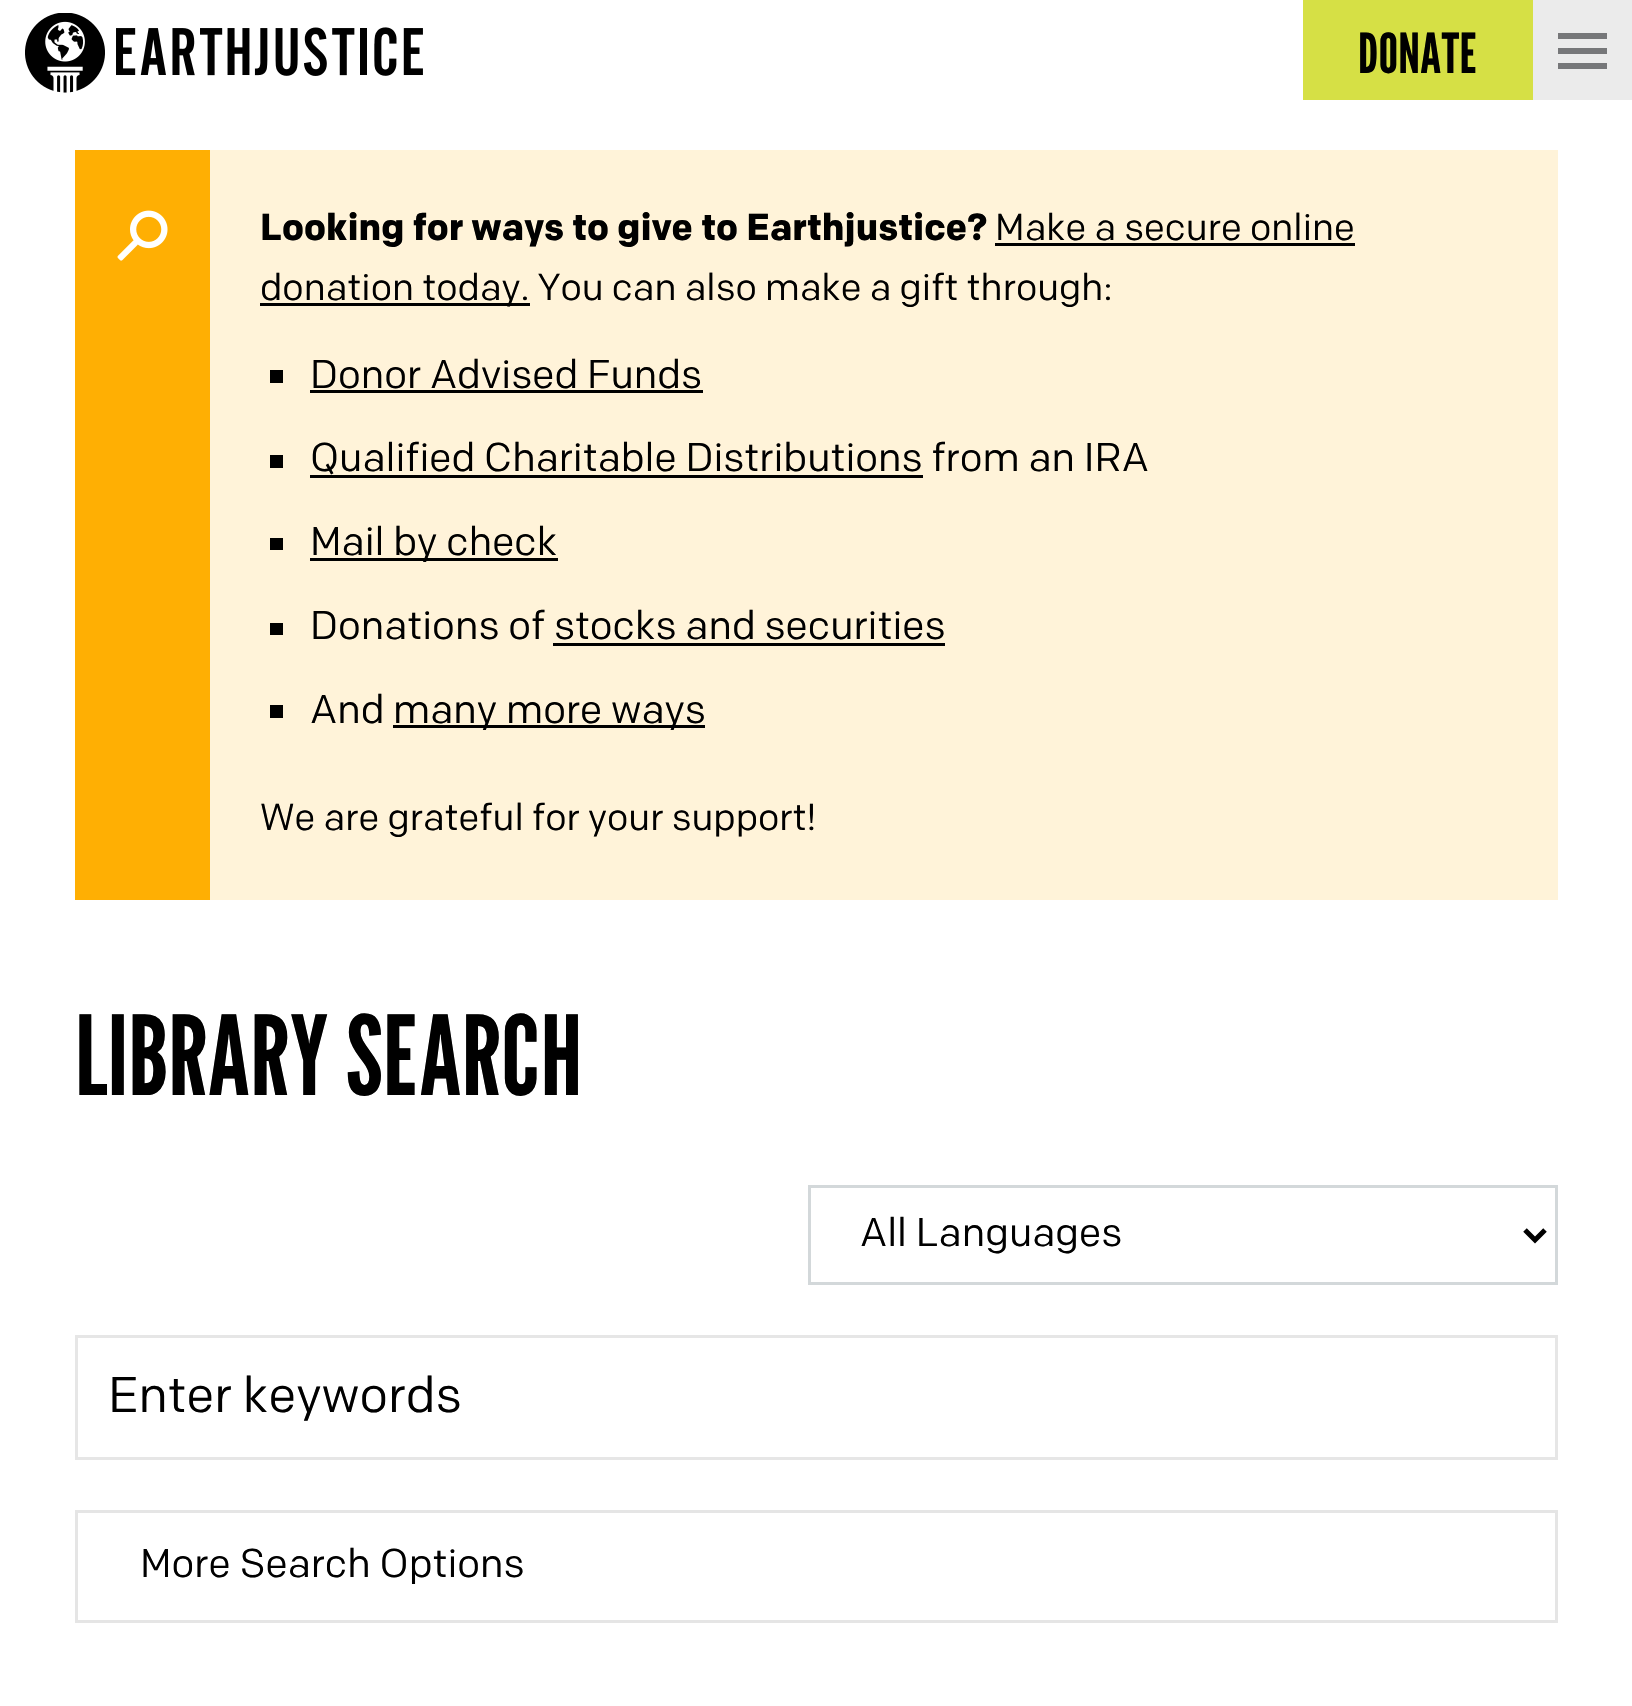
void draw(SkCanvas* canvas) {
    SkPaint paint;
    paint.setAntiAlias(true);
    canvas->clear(0xFFFFFFFF);
    canvas->drawImageRect(SkImages::DeferredFromEncodedData(SkData::MakeFromFileName("img1.png")), SkRect::MakeXYWH(25, 13, 398, 80), SkSamplingOptions());
    paint.setColor(0xFFD6E045);
    canvas->drawRect(SkRect::MakeXYWH(1303, 0, 230, 100), paint);
    SkFont font1(fontMgr->matchFamilyStyle("League Gothic", SkFontStyle::Normal()), 55);
    font1.setSubpixel(true);
    paint.setColor(0xFF000000);
    canvas->drawString("DONATE", 1358, 73, font1, paint);
    paint.setColor(0xFFEBEBEB);
    canvas->drawRect(SkRect::MakeXYWH(1533, 0, 99, 100), paint);
    paint.setColor(0xFF767779);
    canvas->drawPath(SkPathBuilder().moveTo(1558, 33).lineTo(1607, 33).lineTo(1607, 39).lineTo(1558, 39).close().moveTo(1558, 54).lineTo(1607, 54).lineTo(1607, 48).lineTo(1558, 48).close().moveTo(1558, 69).lineTo(1607, 69).lineTo(1607, 63).lineTo(1558, 63).close().detach(), paint);
    paint.setColor(0xFFFFF3D9);
    canvas->drawRect(SkRect::MakeXYWH(210, 150, 1348, 750), paint);
    paint.setColor(0xFFFFAF03);
    canvas->drawRect(SkRect::MakeXYWH(75, 150, 135, 750), paint);
    canvas->drawImageRect(SkImages::DeferredFromEncodedData(SkData::MakeFromFileName("img2.png")), SkRect::MakeXYWH(117, 210, 51, 51), SkSamplingOptions());
    SkFont font2(fontMgr->matchFamilyStyle("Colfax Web", SkFontStyle::Bold()), 37.5f);
    font2.setSubpixel(true);
    paint.setColor(0xFF000000);
    canvas->drawString("Looking for ways to give to Earthjustice?", 260, 240, font2, paint);
    SkFont font3(fontMgr->matchFamilyStyle("Colfax Web", SkFontStyle::Normal()), 37.5f);
    font3.setSubpixel(true);
    canvas->drawString("Make a secure online", 995, 240, font3, paint);
    canvas->drawRect(SkRect::MakeXYWH(995, 243, 360, 3), paint);
    canvas->drawRect(SkRect::MakeXYWH(260, 303, 270, 3), paint);
    canvas->drawString("donation today. You can also make a gift through:", 260, 300, font3, paint);
    canvas->drawRect(SkRect::MakeXYWH(270, 370, 13, 13), paint);
    SkFont font4(fontMgr->matchFamilyStyle("Colfax Web", SkFontStyle::Normal()), 40);
    font4.setSubpixel(true);
    canvas->drawString("Donor Advised Funds", 310, 388, font4, paint);
    canvas->drawRect(SkRect::MakeXYWH(310, 390, 393, 3), paint);
    canvas->drawRect(SkRect::MakeXYWH(270, 455, 13, 13), paint);
    canvas->drawString("Qualified Charitable Distributions from an IRA", 310, 471, font4, paint);
    canvas->drawRect(SkRect::MakeXYWH(310, 475, 613, 3), paint);
    canvas->drawRect(SkRect::MakeXYWH(270, 538, 13, 12), paint);
    canvas->drawRect(SkRect::MakeXYWH(310, 558, 248, 3), paint);
    canvas->drawString("Mail by check", 310, 555, font4, paint);
    canvas->drawRect(SkRect::MakeXYWH(270, 623, 13, 12), paint);
    canvas->drawString("Donations of stocks and securities", 310, 639, font4, paint);
    canvas->drawRect(SkRect::MakeXYWH(553, 643, 392, 3), paint);
    canvas->drawRect(SkRect::MakeXYWH(270, 705, 13, 13), paint);
    canvas->drawString("And", 310, 723, font4, paint);
    canvas->drawRect(SkRect::MakeXYWH(393, 725, 312, 3), paint);
    canvas->drawString("many more ways", 393, 723, font4, paint);
    canvas->drawString("We are grateful for your support!", 260, 830, font3, paint);
    SkFont font5(fontMgr->matchFamilyStyle("League Gothic", SkFontStyle::Normal()), 110);
    font5.setSubpixel(true);
    canvas->drawString("LIBRARY SEARCH", 75, 1095, font5, paint);
    paint.setStyle(SkPaint::kStroke_Style);
    paint.setStrokeWidth(3);
    paint.setColor(0xFFD3D8DA);
    canvas->drawRect(SkRect::MakeXYWH(809.5f, 1186.5f, 747, 97), paint);
    paint.setStrokeWidth(5);
    paint.setColor(0xFF000000);
    canvas->drawPath(SkPathBuilder().moveTo(1525, 1230).lineTo(1535, 1240).lineTo(1545, 1230).detach(), paint);
    paint.setStyle(SkPaint::kFill_Style);
    canvas->drawString("All Languages", 860, 1246, font4, paint);
    paint.setStyle(SkPaint::kStroke_Style);
    paint.setStrokeWidth(3);
    paint.setColor(0xFFE6E6E6);
    canvas->drawRect(SkRect::MakeXYWH(76.5f, 1336.5f, 1480, 122), paint);
    SkFont font6(fontMgr->matchFamilyStyle("Colfax Web", SkFontStyle::Normal()), 50);
    font6.setSubpixel(true);
    paint.setStyle(SkPaint::kFill_Style);
    paint.setColor(0xFF000000);
    canvas->drawString("Enter keywords", 108, 1412, font6, paint);
    paint.setStyle(SkPaint::kStroke_Style);
    paint.setColor(0xFFE5E5E5);
    canvas->drawRect(SkRect::MakeXYWH(76.5f, 1511.5f, 1480, 110), paint);
    paint.setStyle(SkPaint::kFill_Style);
    paint.setColor(0xFF000000);
    canvas->drawString("More Search Options", 140, 1577, font4, paint);
}
